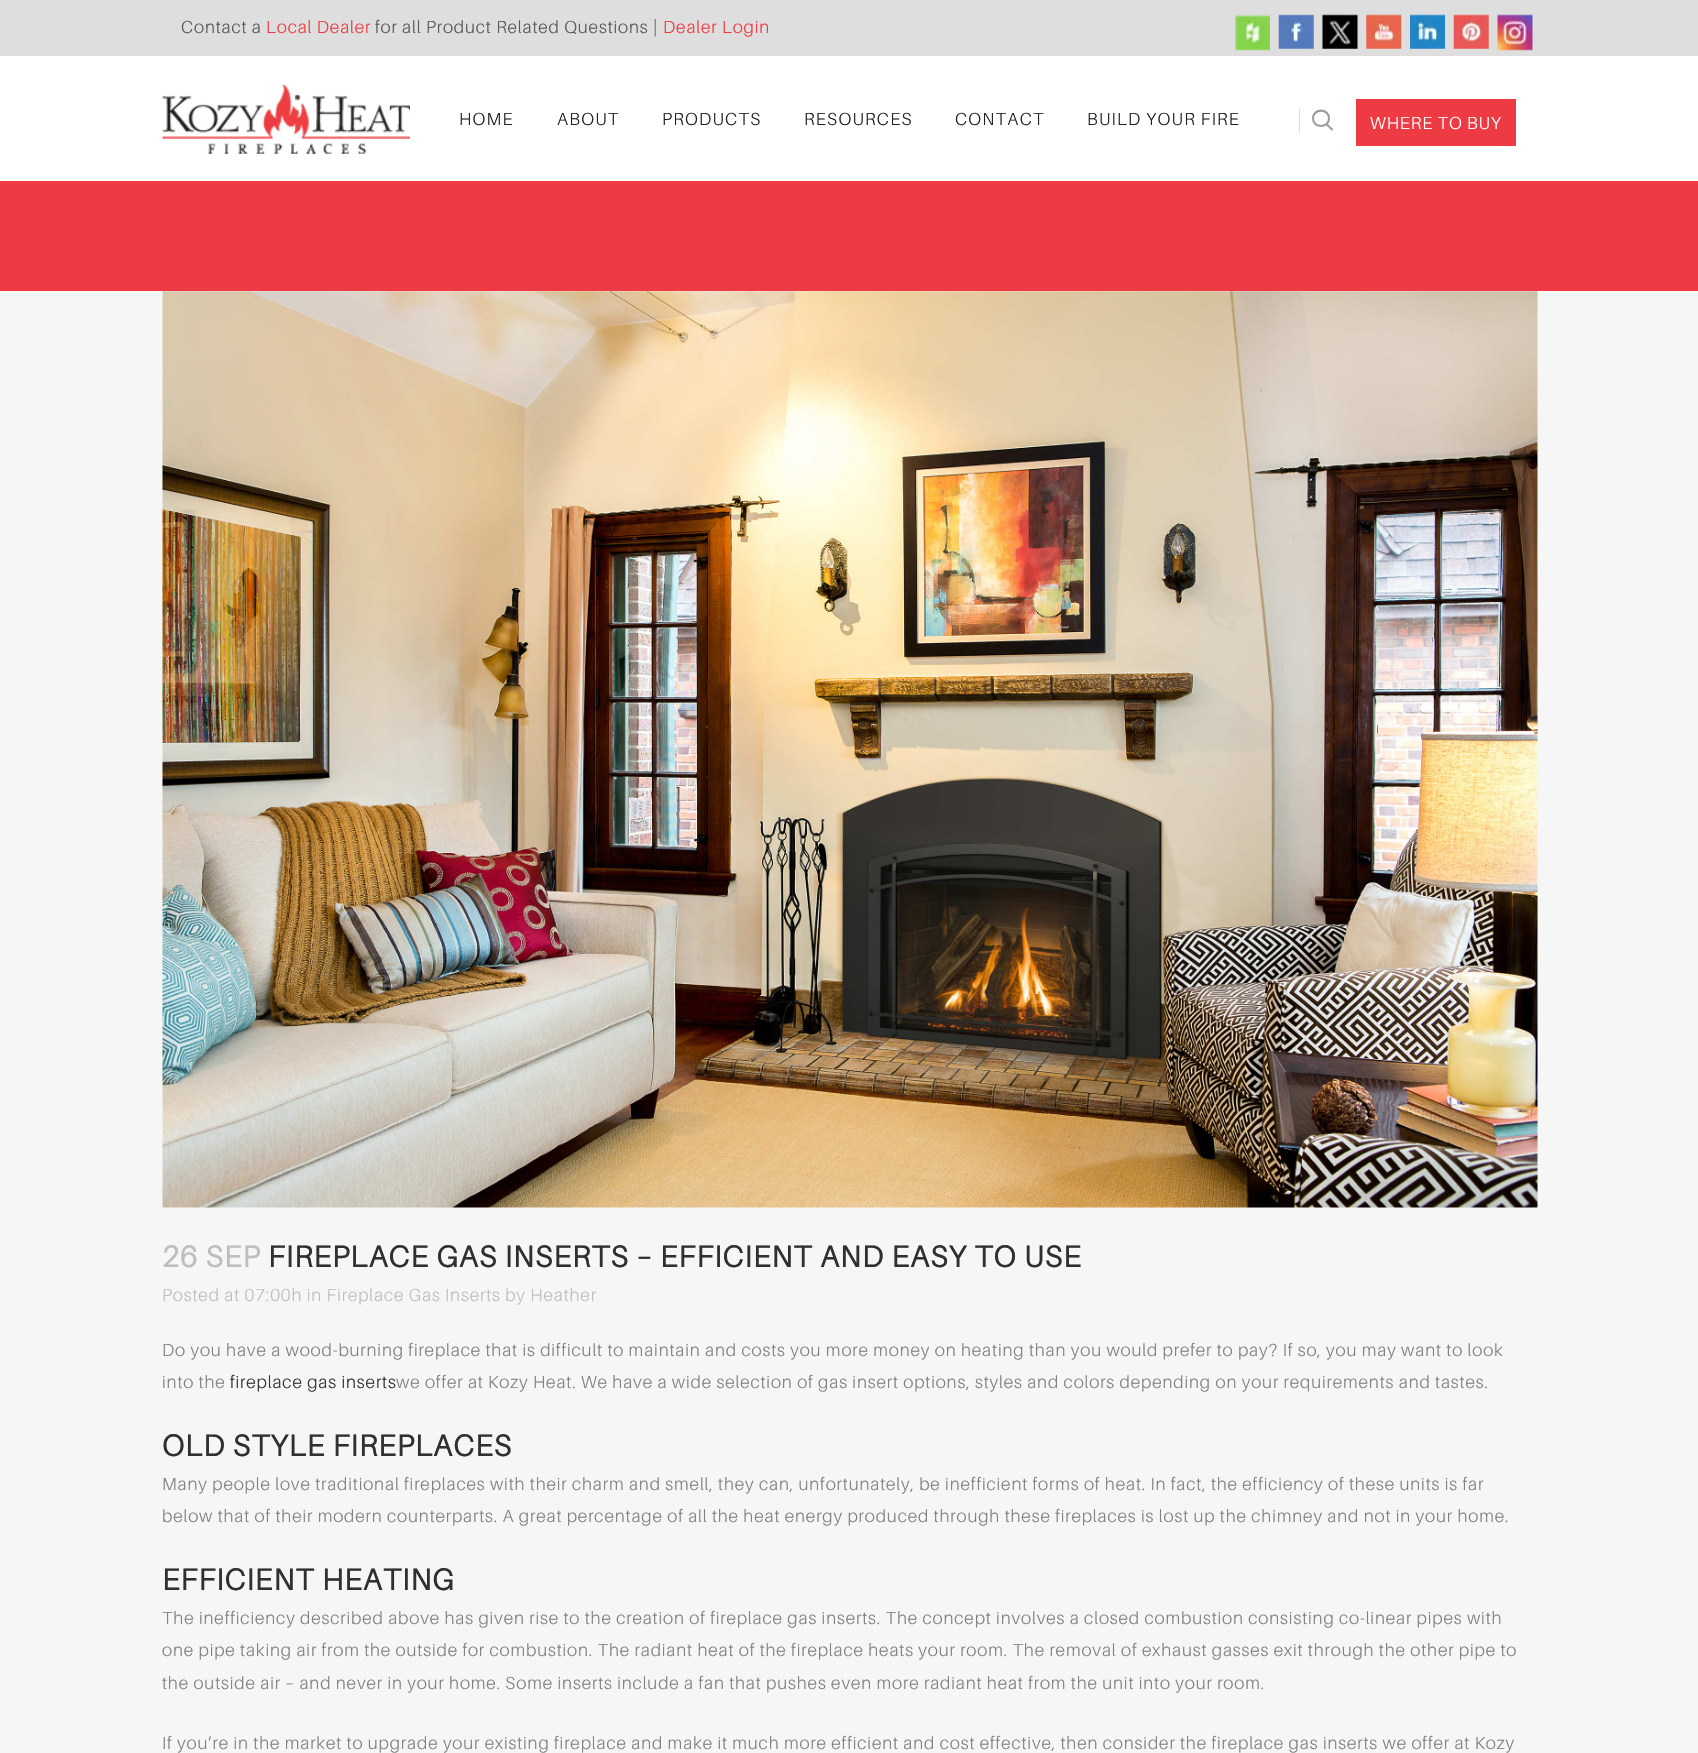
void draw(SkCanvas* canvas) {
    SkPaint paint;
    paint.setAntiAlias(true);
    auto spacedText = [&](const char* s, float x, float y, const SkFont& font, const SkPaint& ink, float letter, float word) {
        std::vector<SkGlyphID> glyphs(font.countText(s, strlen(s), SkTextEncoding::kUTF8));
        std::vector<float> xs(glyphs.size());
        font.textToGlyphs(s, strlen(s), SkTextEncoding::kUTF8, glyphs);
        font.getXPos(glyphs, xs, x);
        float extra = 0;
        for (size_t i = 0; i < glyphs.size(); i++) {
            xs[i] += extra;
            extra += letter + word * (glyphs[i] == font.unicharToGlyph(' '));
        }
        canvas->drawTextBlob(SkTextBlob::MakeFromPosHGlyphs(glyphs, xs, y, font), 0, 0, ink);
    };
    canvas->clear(0xFFF6F6F6);
    paint.setColor(0xFFDEDEDE);
    canvas->drawRect(SkRect::MakeXYWH(0, 0, 1698, 56), paint);
    SkFont font1(fontMgr->matchFamilyStyle("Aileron", SkFontStyle(300, SkFontStyle::kNormal_Width, SkFontStyle::kUpright_Slant)), 17.5f);
    font1.setSubpixel(true);
    paint.setColor(0xFF5A5758);
    spacedText("Contact a", 181, 33, font1, paint, 0.88f, 0);
    paint.setColor(0xFFEE3A43);
    spacedText("Local Dealer", 266, 33, font1, paint, 0.88f, 0);
    paint.setColor(0xFF5A5758);
    spacedText("for all Product Related Questions |", 375, 33, font1, paint, 0.88f, 0);
    paint.setColor(0xFFEE3A43);
    spacedText("Dealer Login", 663, 33, font1, paint, 0.88f, 0);
    canvas->drawImageRect(SkImages::DeferredFromEncodedData(SkData::MakeFromFileName("img1.png")), SkRect::MakeXYWH(1235, 14, 35, 37), SkSamplingOptions());
    canvas->drawImageRect(SkImages::DeferredFromEncodedData(SkData::MakeFromFileName("img2.png")), SkRect::MakeXYWH(1278, 14, 36, 35), SkSamplingOptions());
    canvas->drawImageRect(SkImages::DeferredFromEncodedData(SkData::MakeFromFileName("img3.png")), SkRect::MakeXYWH(1322, 14, 36, 35), SkSamplingOptions());
    canvas->drawImageRect(SkImages::DeferredFromEncodedData(SkData::MakeFromFileName("img4.png")), SkRect::MakeXYWH(1366, 14, 36, 35), SkSamplingOptions());
    canvas->drawImageRect(SkImages::DeferredFromEncodedData(SkData::MakeFromFileName("img5.png")), SkRect::MakeXYWH(1410, 14, 35, 35), SkSamplingOptions());
    canvas->drawImageRect(SkImages::DeferredFromEncodedData(SkData::MakeFromFileName("img6.png")), SkRect::MakeXYWH(1453, 14, 36, 35), SkSamplingOptions());
    canvas->drawImageRect(SkImages::DeferredFromEncodedData(SkData::MakeFromFileName("img7.png")), SkRect::MakeXYWH(1497, 14, 36, 37), SkSamplingOptions());
    paint.setColor(0xFFFFFFFF);
    canvas->drawRect(SkRect::MakeXYWH(0, 56, 1698, 125), paint);
    canvas->drawImageRect(SkImages::DeferredFromEncodedData(SkData::MakeFromFileName("img8.png")), SkRect::MakeXYWH(162, 84, 248, 70), SkSamplingOptions());
    paint.setColor(0xFF231F20);
    spacedText("HOME", 459, 125, font1, paint, 1.25f, 0);
    spacedText("ABOUT", 557, 125, font1, paint, 1.25f, 0);
    spacedText("PRODUCTS", 662, 125, font1, paint, 1.25f, 0);
    spacedText("RESOURCES", 804, 125, font1, paint, 1.25f, 0);
    spacedText("CONTACT", 955, 125, font1, paint, 1.25f, 0);
    spacedText("BUILD YOUR FIRE", 1087, 125, font1, paint, 1.25f, 0);
    paint.setColor(0xFFDEDEDE);
    canvas->drawRect(SkRect::MakeXYWH(1299, 108, 1, 25), paint);
    paint.setStyle(SkPaint::kStroke_Style);
    paint.setStrokeWidth(2.1f);
    paint.setStrokeCap(SkPaint::kRound_Cap);
    paint.setStrokeJoin(SkPaint::kRound_Join);
    paint.setColor(0xFF9D9D9D);
    canvas->drawPath(SkPathBuilder().moveTo(1326.5f, 124).lineTo(1332, 129.5f).moveTo(1329, 118.5f).cubicTo(1329, 128.5f, 1313, 128.5f, 1313, 118.5f).cubicTo(1313, 108, 1329, 108, 1329, 118.5f).close().detach(), paint);
    paint.setStyle(SkPaint::kFill_Style);
    paint.setColor(0xFFEE3A43);
    canvas->drawRect(SkRect::MakeXYWH(1356, 99, 160, 47), paint);
    paint.setColor(0xFFFFFFFF);
    spacedText("WHERE TO BUY", 1370, 129, font1, paint, 0.88f, 0);
    paint.setColor(0xFFEE3A43);
    canvas->drawRect(SkRect::MakeXYWH(0, 181, 1698, 110), paint);
    canvas->drawImageRect(SkImages::DeferredFromEncodedData(SkData::MakeFromFileName("img9.png")), SkRect::MakeXYWH(162, 291, 1376, 917), SkSamplingOptions());
    SkFont font2(fontMgr->matchFamilyStyle("Aileron", SkFontStyle::Bold()), 30);
    font2.setSubpixel(true);
    paint.setColor(0xFFBEBEBE);
    spacedText("26 SEP", 162, 1267, font2, paint, 1.25f, 0);
    paint.setColor(0xFF303030);
    spacedText("FIREPLACE GAS INSERTS – EFFICIENT AND EASY TO USE", 268, 1267, font2, paint, 1.25f, 0);
    paint.setColor(0xFFBEBEBE);
    spacedText("Posted at 07:00h in Fireplace Gas Inserts by Heather", 162, 1301, font1, paint, 0.88f, 0);
    paint.setColor(0xFF818181);
    spacedText("Do you have a wood-burning fireplace that is difficult to maintain and costs you more money on heating than you would prefer to pay? If so, you may want to look", 162, 1356, font1, paint, 0.88f, 0);
    spacedText("into the", 162, 1388, font1, paint, 0.88f, 0);
    paint.setColor(0xFF303030);
    spacedText("fireplace gas inserts", 230, 1388, font1, paint, 0.88f, 0);
    paint.setColor(0xFF818181);
    spacedText("we offer at Kozy Heat. We have a wide selection of gas insert options, styles and colors depending on your requirements and tastes.", 396, 1388, font1, paint, 0.88f, 0);
    paint.setColor(0xFF303030);
    spacedText("OLD STYLE FIREPLACES", 162, 1456, font2, paint, 1.25f, 0);
    paint.setColor(0xFF818181);
    spacedText("Many people love traditional fireplaces with their charm and smell, they can, unfortunately, be inefficient forms of heat. In fact, the efficiency of these units is far", 162, 1490, font1, paint, 0.88f, 0);
    spacedText("below that of their modern counterparts. A great percentage of all the heat energy produced through these fireplaces is lost up the chimney and not in your home.", 162, 1522, font1, paint, 0.88f, 0);
    paint.setColor(0xFF303030);
    spacedText("EFFICIENT HEATING", 162, 1590, font2, paint, 1.25f, 0);
    paint.setColor(0xFF818181);
    spacedText("The inefficiency described above has given rise to the creation of fireplace gas inserts. The concept involves a closed combustion consisting co-linear pipes with", 162, 1624, font1, paint, 0.88f, 0);
    spacedText("one pipe taking air from the outside for combustion. The radiant heat of the fireplace heats your room. The removal of exhaust gasses exit through the other pipe to", 162, 1656, font1, paint, 0.88f, 0);
    spacedText("the outside air – and never in your home. Some inserts include a fan that pushes even more radiant heat from the unit into your room.", 162, 1689, font1, paint, 0.88f, 0);
    spacedText("If you’re in the market to upgrade your existing fireplace and make it much more efficient and cost effective, then consider the fireplace gas inserts we offer at Kozy", 162, 1749, font1, paint, 0.88f, 0);
}
